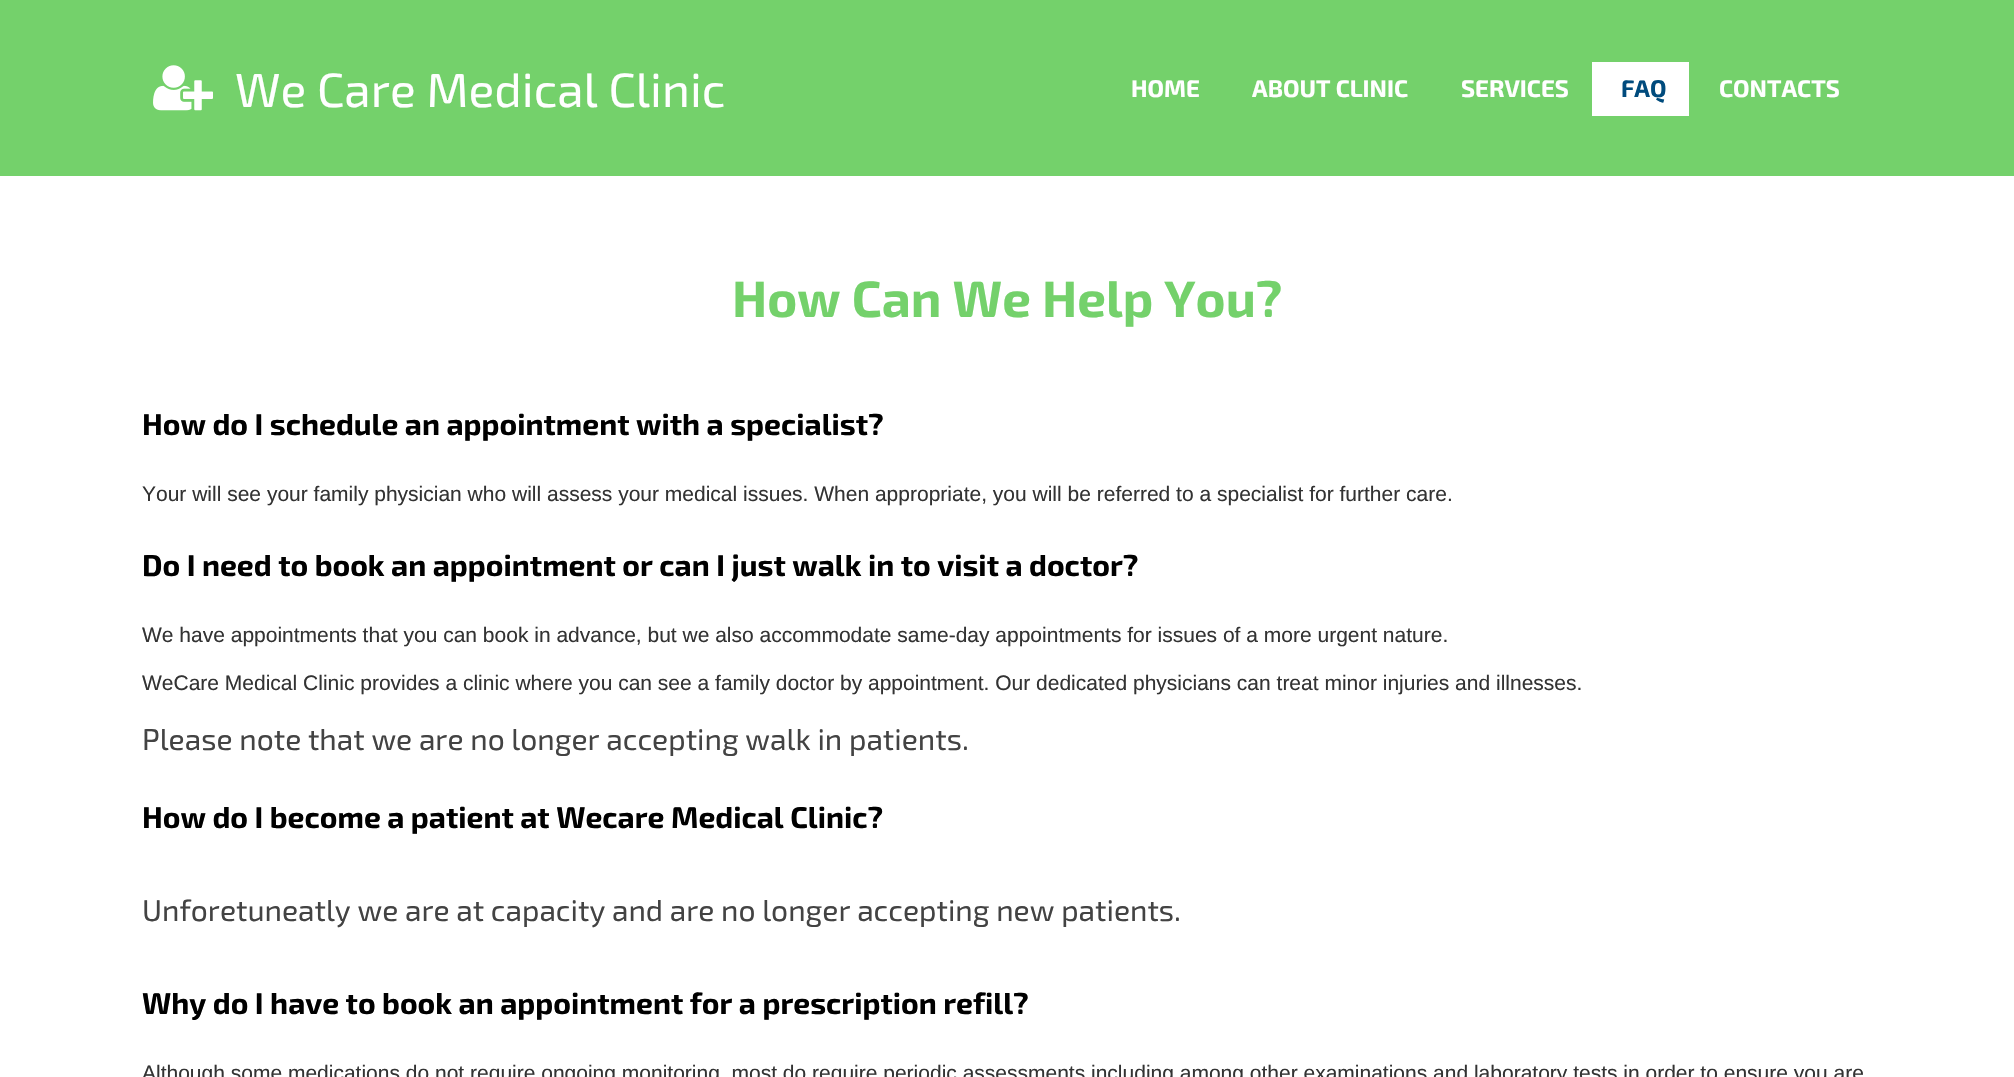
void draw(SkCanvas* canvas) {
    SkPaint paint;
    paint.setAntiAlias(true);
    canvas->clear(0xFFFFFFFF);
    paint.setColor(0xFF74D16B);
    canvas->drawRect(SkRect::MakeXYWH(0, 0, 2014, 176), paint);
    canvas->drawImageRect(SkImages::DeferredFromEncodedData(SkData::MakeFromFileName("img1.png")), SkRect::MakeXYWH(153, 65, 60, 46), SkSamplingOptions());
    SkFont font1(fontMgr->matchFamilyStyle("Exo 2", SkFontStyle::Normal()), 48);
    font1.setSubpixel(true);
    paint.setColor(0xFFFFFFFF);
    canvas->drawString("We Care Medical Clinic", 235, 107, font1, paint);
    SkFont font2(fontMgr->matchFamilyStyle("Exo 2", SkFontStyle::Bold()), 24);
    font2.setSubpixel(true);
    canvas->drawString("HOME", 1131, 97, font2, paint);
    canvas->drawString("ABOUT CLINIC", 1252, 97, font2, paint);
    canvas->drawString("SERVICES", 1461, 97, font2, paint);
    canvas->drawRect(SkRect::MakeXYWH(1592, 62, 97, 54), paint);
    paint.setColor(0xFF004B7D);
    canvas->drawString("FAQ", 1621, 97, font2, paint);
    paint.setColor(0xFFFFFFFF);
    canvas->drawString("CONTACTS", 1719, 97, font2, paint);
    SkFont font3(fontMgr->matchFamilyStyle("Exo 2", SkFontStyle::Bold()), 51);
    font3.setSubpixel(true);
    paint.setColor(0xFF74D16B);
    canvas->drawString("How Can We Help You?", 732, 317, font3, paint);
    SkFont font4(fontMgr->matchFamilyStyle("Exo 2", SkFontStyle::Bold()), 30);
    font4.setSubpixel(true);
    paint.setColor(0xFF000000);
    canvas->drawString("How do I schedule an appointment with a specialist?", 142, 435, font4, paint);
    SkFont font5(fontMgr->matchFamilyStyle("Liberation Sans", SkFontStyle::Normal()), 21);
    font5.setSubpixel(true);
    paint.setColor(0xFF333333);
    canvas->drawString("Your will see your family physician who will assess your medical issues. When appropriate, you will be referred to a specialist for further care.", 142, 501, font5, paint);
    paint.setColor(0xFF000000);
    canvas->drawString("Do I need to book an appointment or can I just walk in to visit a doctor?", 142, 576, font4, paint);
    paint.setColor(0xFF333333);
    canvas->drawString("We have appointments that you can book in advance, but we also accommodate same-day appointments for issues of a more urgent nature.", 142, 642, font5, paint);
    canvas->drawString("WeCare Medical Clinic provides a clinic where you can see a family doctor by appointment. Our dedicated physicians can treat minor injuries and illnesses.", 142, 690, font5, paint);
    SkFont font6(fontMgr->matchFamilyStyle("Exo 2", SkFontStyle::Normal()), 30);
    font6.setSubpixel(true);
    paint.setColor(0xFF434343);
    canvas->drawString("Please note that we are no longer accepting walk in patients.", 142, 750, font6, paint);
    paint.setColor(0xFF000000);
    canvas->drawString("How do I become a patient at Wecare Medical Clinic?", 142, 828, font4, paint);
    paint.setColor(0xFF434343);
    canvas->drawString("Unforetuneatly we are at capacity and are no longer accepting new patients.", 142, 921, font6, paint);
    paint.setColor(0xFF000000);
    canvas->drawString("Why do I have to book an appointment for a prescription refill?", 142, 1014, font4, paint);
    paint.setColor(0xFF333333);
    canvas->drawString("Although some medications do not require ongoing monitoring, most do require periodic assessments including among other examinations and laboratory tests in order to ensure you are", 142, 1080, font5, paint);
}
